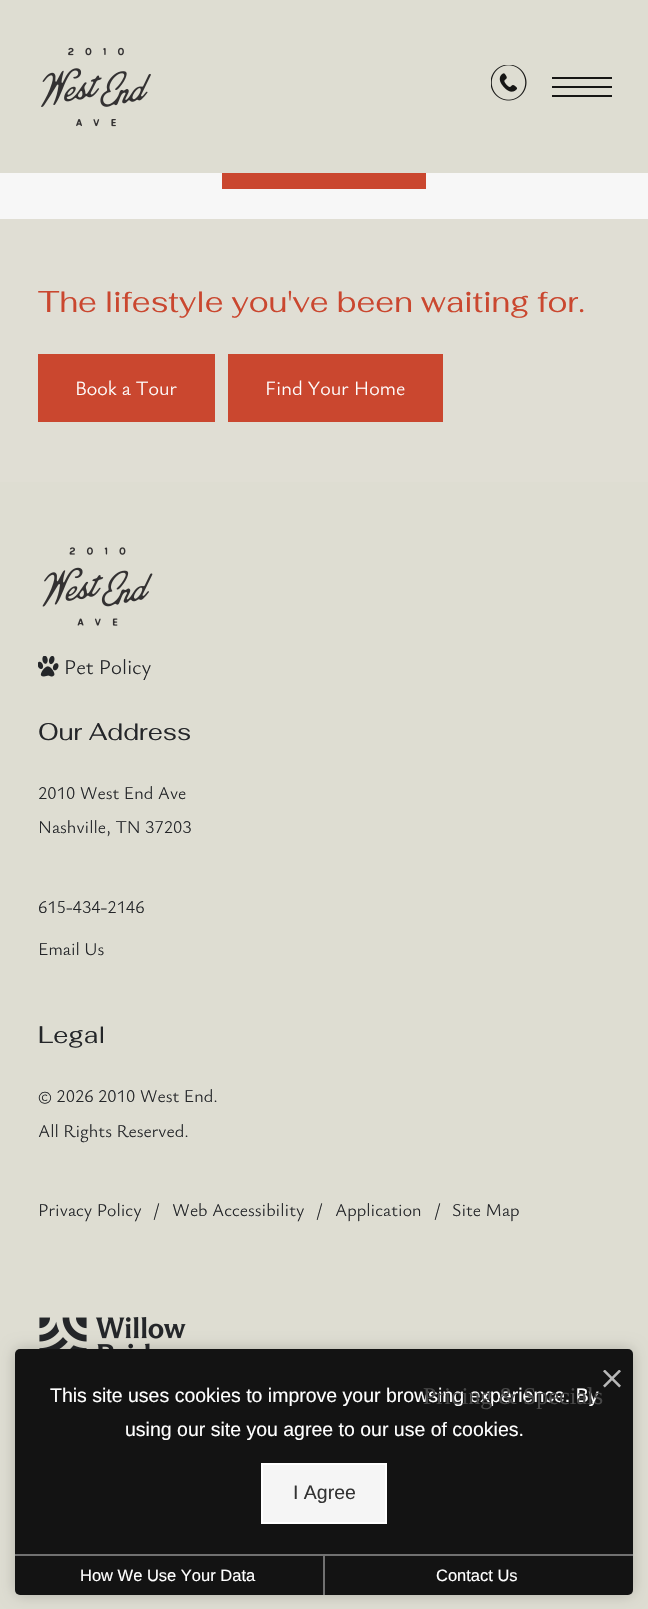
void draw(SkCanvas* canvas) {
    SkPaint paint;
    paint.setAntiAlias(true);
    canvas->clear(0xFFF7F7F7);
    paint.setColor(0xFFDEDDD2);
    canvas->drawRect(SkRect::MakeXYWH(0, 0, 648, 173), paint);
    canvas->drawImageRect(SkImages::DeferredFromEncodedData(SkData::MakeFromFileName("img1.png")), SkRect::MakeXYWH(41, 47, 110, 80), SkSamplingOptions());
    canvas->drawImageRect(SkImages::DeferredFromEncodedData(SkData::MakeFromFileName("img2.png")), SkRect::MakeXYWH(491, 65, 36, 36), SkSamplingOptions());
    paint.setColor(0xFF161615);
    canvas->drawRect(SkRect::MakeXYWH(552, 77, 60, 2), paint);
    canvas->drawRect(SkRect::MakeXYWH(552, 86, 60, 2), paint);
    canvas->drawRect(SkRect::MakeXYWH(552, 95, 60, 2), paint);
    paint.setColor(0xFFCA472F);
    canvas->drawRect(SkRect::MakeXYWH(222, 173, 204, 16), paint);
    paint.setColor(0xFFDEDDD2);
    canvas->drawRect(SkRect::MakeXYWH(0, 482, 648, 1127), paint);
    paint.setColor(0xFFE0DED4);
    canvas->drawRect(SkRect::MakeXYWH(0, 219, 648, 263), paint);
    SkFont font1(fontMgr->matchFamilyStyle("Fahkwang", SkFontStyle::Normal()), 30);
    font1.setSubpixel(true);
    paint.setColor(0xFFCA472F);
    canvas->drawString("The lifestyle you've been waiting for.", 38, 312, font1, paint);
    canvas->drawRect(SkRect::MakeXYWH(38, 354, 177, 68), paint);
    SkFont font2(fontMgr->matchFamilyStyle("Ysabeau Office", SkFontStyle(300, SkFontStyle::kNormal_Width, SkFontStyle::kUpright_Slant)), 20.25f);
    font2.setSubpixel(true);
    paint.setColor(0xFFFFFFFF);
    canvas->drawString("Book a Tour", 75, 395, font2, paint);
    paint.setColor(0xFFCA472F);
    canvas->drawRect(SkRect::MakeXYWH(228, 354, 215, 68), paint);
    paint.setColor(0xFFFFFFFF);
    canvas->drawString("Find Your Home", 265, 395, font2, paint);
    canvas->drawImageRect(SkImages::DeferredFromEncodedData(SkData::MakeFromFileName("img3.png")), SkRect::MakeXYWH(42, 547, 111, 79), SkSamplingOptions());
    canvas->drawImageRect(SkImages::DeferredFromEncodedData(SkData::MakeFromFileName("img4.png")), SkRect::MakeXYWH(38, 656, 21, 21), SkSamplingOptions());
    SkFont font3(fontMgr->matchFamilyStyle("Ysabeau Office", SkFontStyle(300, SkFontStyle::kNormal_Width, SkFontStyle::kUpright_Slant)), 21);
    font3.setSubpixel(true);
    paint.setColor(0xFF242629);
    canvas->drawString("Pet Policy", 64, 674, font3, paint);
    SkFont font4(fontMgr->matchFamilyStyle("Fahkwang", SkFontStyle::Normal()), 24);
    font4.setSubpixel(true);
    canvas->drawString("Our Address", 38, 740, font4, paint);
    SkFont font5(fontMgr->matchFamilyStyle("Ysabeau Office", SkFontStyle(300, SkFontStyle::kNormal_Width, SkFontStyle::kUpright_Slant)), 18);
    font5.setSubpixel(true);
    canvas->drawString("2010 West End Ave", 38, 799, font5, paint);
    canvas->drawString("Nashville, TN 37203", 38, 833, font5, paint);
    canvas->drawString("615-434-2146", 38, 913, font5, paint);
    canvas->drawString("Email Us", 38, 955, font5, paint);
    canvas->drawString("Legal", 38, 1043, font4, paint);
    canvas->drawString("© 2026 2010 West End.", 38, 1102, font5, paint);
    canvas->drawString("All Rights Reserved.", 38, 1137, font5, paint);
    canvas->drawString("Privacy Policy", 38, 1216, font5, paint);
    canvas->drawString("/", 153, 1216, font5, paint);
    canvas->drawString("Web Accessibility", 172, 1216, font5, paint);
    canvas->drawString("/", 316, 1216, font5, paint);
    canvas->drawString("Application", 335, 1216, font5, paint);
    canvas->drawString("/", 434, 1216, font5, paint);
    canvas->drawString("Site Map", 452, 1216, font5, paint);
    canvas->drawImageRect(SkImages::DeferredFromEncodedData(SkData::MakeFromFileName("img5.png")), SkRect::MakeXYWH(39, 1317, 147, 32), SkSamplingOptions());
    paint.setColor(0x33000000);
    paint.setMaskFilter(SkMaskFilter::MakeBlur(kNormal_SkBlurStyle, 7.5f));
    canvas->drawRoundRect(SkRect::MakeXYWH(15, 1349, 618, 246), 5, 5, paint);
    paint.setMaskFilter(nullptr);
    paint.setColor(0xFF131313);
    canvas->drawRoundRect(SkRect::MakeXYWH(15, 1349, 618, 246), 5, 5, paint);
    canvas->drawImageRect(SkImages::DeferredFromEncodedData(SkData::MakeFromFileName("img6.png")), SkRect::MakeXYWH(603, 1370, 18, 18), SkSamplingOptions());
    SkFont font6(fontMgr->matchFamilyStyle("Liberation Sans", SkFontStyle::Normal()), 19.5f);
    font6.setSubpixel(true);
    paint.setColor(0xFFFFFFFF);
    canvas->drawString("This site uses cookies to improve your browsing experience. By", 50, 1402, font6, paint);
    canvas->drawString("using our site you agree to our use of cookies.", 125, 1436, font6, paint);
    paint.setColor(0xFFF5F5F5);
    canvas->drawRect(SkRect::MakeXYWH(262, 1464, 124, 59), paint);
    paint.setStyle(SkPaint::kStroke_Style);
    paint.setStrokeWidth(2);
    paint.setColor(0xFFFFFFFF);
    canvas->drawRect(SkRect::MakeXYWH(262, 1464, 124, 59), paint);
    paint.setStyle(SkPaint::kFill_Style);
    paint.setColor(0xFF333333);
    canvas->drawString("I Agree", 293, 1499, font6, paint);
    paint.setColor(0xFF717171);
    canvas->drawRect(SkRect::MakeXYWH(15, 1554, 618, 2), paint);
    canvas->drawRect(SkRect::MakeXYWH(323, 1556, 2, 39), paint);
    SkFont font7(fontMgr->matchFamilyStyle("Liberation Sans", SkFontStyle::Normal()), 16.5f);
    font7.setSubpixel(true);
    paint.setColor(0xFFFFFFFF);
    canvas->drawString("How We Use Your Data", 80, 1581, font7, paint);
    canvas->drawString("Contact Us", 436, 1581, font7, paint);
    SkFont font8(fontMgr->matchFamilyStyle("Liberation Serif", SkFontStyle::Normal()), 24);
    font8.setSubpixel(true);
    paint.setColor(0xFF484848);
    canvas->drawString("Pricing & Specials", 423, 1404, font8, paint);
}
